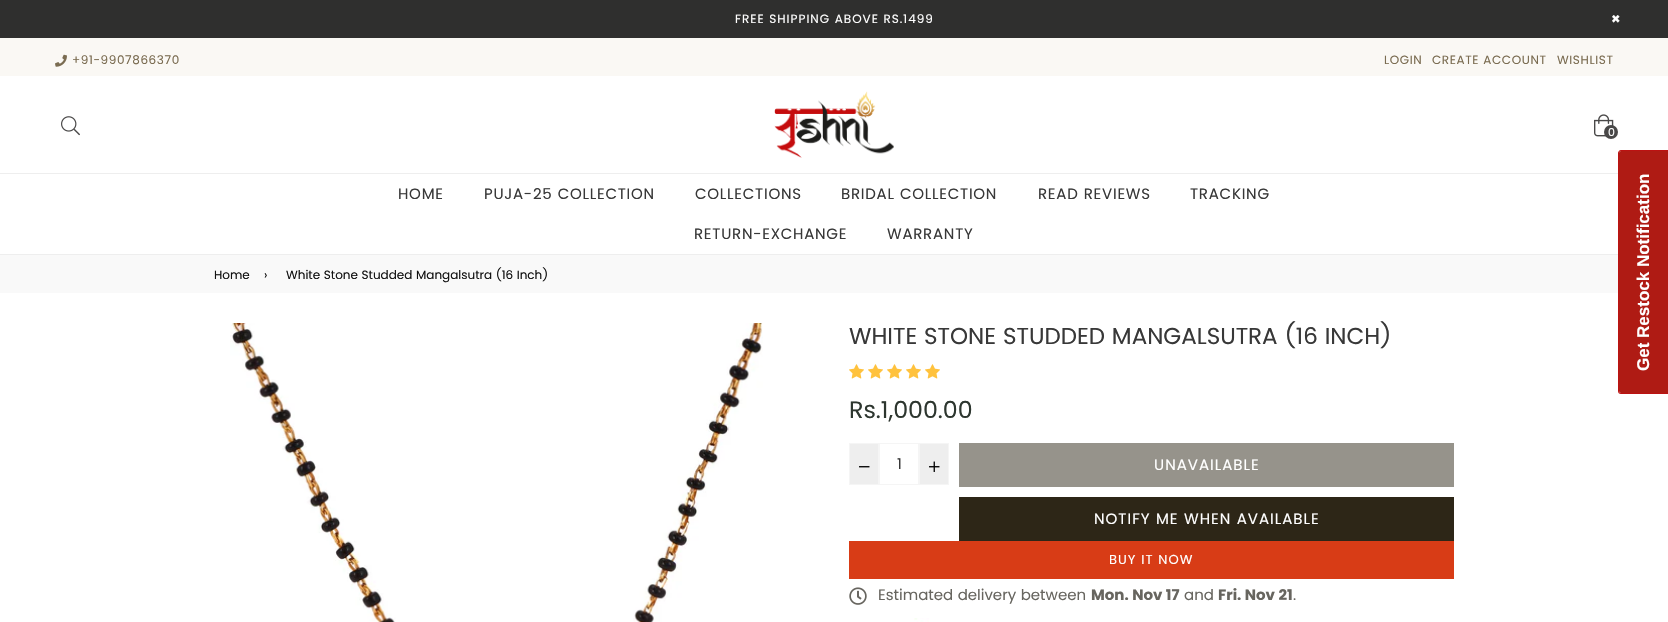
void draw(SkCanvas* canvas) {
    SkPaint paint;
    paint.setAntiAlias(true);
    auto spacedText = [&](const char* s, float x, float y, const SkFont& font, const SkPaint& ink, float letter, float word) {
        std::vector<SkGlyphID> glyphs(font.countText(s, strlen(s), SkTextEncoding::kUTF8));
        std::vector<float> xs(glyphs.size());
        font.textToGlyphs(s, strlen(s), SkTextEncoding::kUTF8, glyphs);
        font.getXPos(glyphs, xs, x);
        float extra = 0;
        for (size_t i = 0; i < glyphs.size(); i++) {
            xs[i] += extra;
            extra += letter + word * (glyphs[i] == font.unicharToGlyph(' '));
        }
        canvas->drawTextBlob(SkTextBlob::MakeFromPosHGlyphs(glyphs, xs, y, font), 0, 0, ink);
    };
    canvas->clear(0xFFFFFFFF);
    paint.setColor(0xFF2F2F2E);
    canvas->drawRect(SkRect::MakeXYWH(0, 0, 1668, 38), paint);
    SkFont font1(fontMgr->matchFamilyStyle("Poppins", SkFontStyle::Normal()), 12);
    font1.setSubpixel(true);
    paint.setColor(0xFFFFFFFF);
    spacedText("FREE SHIPPING ABOVE RS.1499", 735, 23, font1, paint, 1, 0);
    SkFont font2(fontMgr->matchFamilyStyle("Poppins", SkFontStyle::Bold()), 15);
    font2.setSubpixel(true);
    canvas->drawString("×", 1611, 24, font2, paint);
    paint.setColor(0xFFFAF8F4);
    canvas->drawRect(SkRect::MakeXYWH(0, 38, 1668, 38), paint);
    canvas->drawImageRect(SkImages::DeferredFromEncodedData(SkData::MakeFromFileName("img1.png")), SkRect::MakeXYWH(55, 54, 12, 13), SkSamplingOptions());
    paint.setColor(0xFF7A6C51);
    spacedText("+91-9907866370", 72, 64, font1, paint, 0.6f, 0);
    spacedText("LOGIN", 1384, 64, font1, paint, 0.6f, 0);
    spacedText("CREATE ACCOUNT", 1432, 64, font1, paint, 0.6f, 0);
    spacedText("WISHLIST", 1557, 64, font1, paint, 0.6f, 0);
    canvas->drawImageRect(SkImages::DeferredFromEncodedData(SkData::MakeFromFileName("img2.png")), SkRect::MakeXYWH(61, 116, 19, 20), SkSamplingOptions());
    canvas->drawImageRect(SkImages::DeferredFromEncodedData(SkData::MakeFromFileName("img3.png")), SkRect::MakeXYWH(774, 91, 120, 67), SkSamplingOptions());
    canvas->drawImageRect(SkImages::DeferredFromEncodedData(SkData::MakeFromFileName("img4.png")), SkRect::MakeXYWH(1594, 114, 20, 23), SkSamplingOptions());
    paint.setColor(0xFF494848);
    canvas->drawCircle(1611, 132, 7, paint);
    SkFont font3(fontMgr->matchFamilyStyle("Poppins", SkFontStyle::Normal()), 11);
    font3.setSubpixel(true);
    paint.setColor(0xFFFFFFFF);
    canvas->drawString("0", 1608, 136, font3, paint);
    paint.setColor(0xFFEEEEEE);
    canvas->drawRect(SkRect::MakeXYWH(0, 173, 1618, 1), paint);
    canvas->drawRect(SkRect::MakeXYWH(0, 254, 1618, 1), paint);
    SkFont font4(fontMgr->matchFamilyStyle("Poppins", SkFontStyle::Normal()), 15);
    font4.setSubpixel(true);
    paint.setColor(0xFF383838);
    spacedText("HOME", 398, 199, font4, paint, 0.75f, 0);
    spacedText("PUJA-25 COLLECTION", 484, 199, font4, paint, 0.75f, 0);
    spacedText("COLLECTIONS", 695, 199, font4, paint, 0.75f, 0);
    spacedText("BRIDAL COLLECTION", 841, 199, font4, paint, 0.75f, 0);
    spacedText("READ REVIEWS", 1038, 199, font4, paint, 0.75f, 0);
    spacedText("TRACKING", 1190, 199, font4, paint, 0.75f, 0);
    spacedText("RETURN-EXCHANGE", 694, 239, font4, paint, 0.75f, 0);
    spacedText("WARRANTY", 887, 239, font4, paint, 0.75f, 0);
    paint.setColor(0xFFF9F9F9);
    canvas->drawRect(SkRect::MakeXYWH(0, 255, 1618, 38), paint);
    paint.setColor(0xFF111111);
    canvas->drawString("Home", 214, 279, font1, paint);
    canvas->drawString("›", 264, 279, font1, paint);
    canvas->drawString("White Stone Studded Mangalsutra (16 Inch)", 286, 279, font1, paint);
    canvas->drawImageRect(SkImages::DeferredFromEncodedData(SkData::MakeFromFileName("img5.png")), SkRect::MakeXYWH(230, 323, 533, 299), SkSamplingOptions());
    SkFont font5(fontMgr->matchFamilyStyle("Poppins", SkFontStyle::Normal()), 23);
    font5.setSubpixel(true);
    paint.setColor(0xFF383838);
    canvas->drawString("WHITE STONE STUDDED MANGALSUTRA (16 INCH)", 849, 344, font5, paint);
    canvas->drawImageRect(SkImages::DeferredFromEncodedData(SkData::MakeFromFileName("img6.png")), SkRect::MakeXYWH(849, 364, 15, 15), SkSamplingOptions());
    canvas->drawImageRect(SkImages::DeferredFromEncodedData(SkData::MakeFromFileName("img6.png")), SkRect::MakeXYWH(868, 364, 15, 15), SkSamplingOptions());
    canvas->drawImageRect(SkImages::DeferredFromEncodedData(SkData::MakeFromFileName("img6.png")), SkRect::MakeXYWH(887, 364, 15, 15), SkSamplingOptions());
    canvas->drawImageRect(SkImages::DeferredFromEncodedData(SkData::MakeFromFileName("img6.png")), SkRect::MakeXYWH(906, 364, 15, 15), SkSamplingOptions());
    canvas->drawImageRect(SkImages::DeferredFromEncodedData(SkData::MakeFromFileName("img6.png")), SkRect::MakeXYWH(925, 364, 15, 15), SkSamplingOptions());
    SkFont font6(fontMgr->matchFamilyStyle("Poppins", SkFontStyle::Normal()), 23.75f);
    font6.setSubpixel(true);
    paint.setColor(0xFF2D362F);
    canvas->drawString("Rs.1,000.00", 849, 418, font6, paint);
    paint.setColor(0xFFEEEEEE);
    canvas->drawRect(SkRect::MakeXYWH(849.5f, 443.5f, 29, 41), paint);
    paint.setStyle(SkPaint::kStroke_Style);
    paint.setStrokeWidth(1);
    paint.setColor(0xFFF5F5F5);
    canvas->drawRect(SkRect::MakeXYWH(849.5f, 443.5f, 29, 41), paint);
    canvas->drawImageRect(SkImages::DeferredFromEncodedData(SkData::MakeFromFileName("img7.png")), SkRect::MakeXYWH(859, 466, 11, 2), SkSamplingOptions());
    canvas->drawRect(SkRect::MakeXYWH(879.5f, 443.5f, 39, 41), paint);
    paint.setStyle(SkPaint::kFill_Style);
    paint.setColor(0xFF383838);
    canvas->drawString("1", 897, 469, font4, paint);
    paint.setColor(0xFFEEEEEE);
    canvas->drawRect(SkRect::MakeXYWH(919.5f, 443.5f, 29, 41), paint);
    paint.setStyle(SkPaint::kStroke_Style);
    paint.setColor(0xFFF5F5F5);
    canvas->drawRect(SkRect::MakeXYWH(919.5f, 443.5f, 29, 41), paint);
    canvas->drawImageRect(SkImages::DeferredFromEncodedData(SkData::MakeFromFileName("img8.png")), SkRect::MakeXYWH(929, 461, 11, 11), SkSamplingOptions());
    paint.setStyle(SkPaint::kFill_Style);
    paint.setColor(0xFF96938B);
    canvas->drawRect(SkRect::MakeXYWH(959, 443, 495, 44), paint);
    paint.setColor(0xFFFFFFFF);
    spacedText("UNAVAILABLE", 1154, 470, font4, paint, 1, 0);
    paint.setColor(0xFF2D2617);
    canvas->drawRect(SkRect::MakeXYWH(959, 497, 495, 44), paint);
    paint.setColor(0xFFFFFFFF);
    spacedText("NOTIFY ME WHEN AVAILABLE", 1094, 524, font4, paint, 1, 0);
    paint.setColor(0xFFD83C16);
    canvas->drawRect(SkRect::MakeXYWH(849, 541, 605, 38), paint);
    SkFont font7(fontMgr->matchFamilyStyle("Poppins", SkFontStyle::Normal()), 13);
    font7.setSubpixel(true);
    paint.setColor(0xFFFFFFFF);
    spacedText("BUY IT NOW", 1109, 564, font7, paint, 1, 0);
    canvas->drawImageRect(SkImages::DeferredFromEncodedData(SkData::MakeFromFileName("img9.png")), SkRect::MakeXYWH(849, 587, 18, 18), SkSamplingOptions());
    paint.setColor(0xFF67655F);
    canvas->drawString("Estimated delivery between", 878, 600, font4, paint);
    canvas->drawString("Mon. Nov 17", 1091, 600, font2, paint);
    canvas->drawString("and", 1184, 600, font4, paint);
    canvas->drawString("Fri. Nov 21", 1218, 600, font2, paint);
    canvas->drawString(".", 1293, 600, font4, paint);
    canvas->drawImageRect(SkImages::DeferredFromEncodedData(SkData::MakeFromFileName("img10.png")), SkRect::MakeXYWH(914, 618, 15, 4), SkSamplingOptions());
    paint.setColor(0xFFAF1B14);
    canvas->drawPath(SkPathBuilder().moveTo(1619, 391).lineTo(1619, 153).cubicTo(1619, 152, 1620, 151, 1621, 151).lineTo(1668, 151).lineTo(1668, 393).lineTo(1621, 393).cubicTo(1620, 393, 1619, 392, 1619, 391).close().detach(), paint);
    paint.setColor(0xFFBC1212);
    canvas->drawPath(SkPathBuilder(SkPathFillType::kEvenOdd).moveTo(1618, 391).lineTo(1618, 153).cubicTo(1618, 152, 1619, 150, 1621, 150).lineTo(1668, 150).lineTo(1668, 394).lineTo(1621, 394).cubicTo(1619, 394, 1618, 393, 1618, 391).close().moveTo(1619, 391).lineTo(1619, 153).cubicTo(1619, 152, 1620, 151, 1621, 151).lineTo(1668, 151).lineTo(1668, 393).lineTo(1621, 393).cubicTo(1620, 393, 1619, 392, 1619, 391).close().detach(), paint);
    SkFont font8(fontMgr->matchFamilyStyle("Liberation Sans", SkFontStyle::Bold()), 17);
    font8.setSubpixel(true);
    paint.setColor(0xFFFFFFFF);
    canvas->save();
    canvas->rotate(-90, 1649, 371);
    canvas->drawString("Get Restock Notification", 1649, 371, font8, paint);
    canvas->restore();
}
